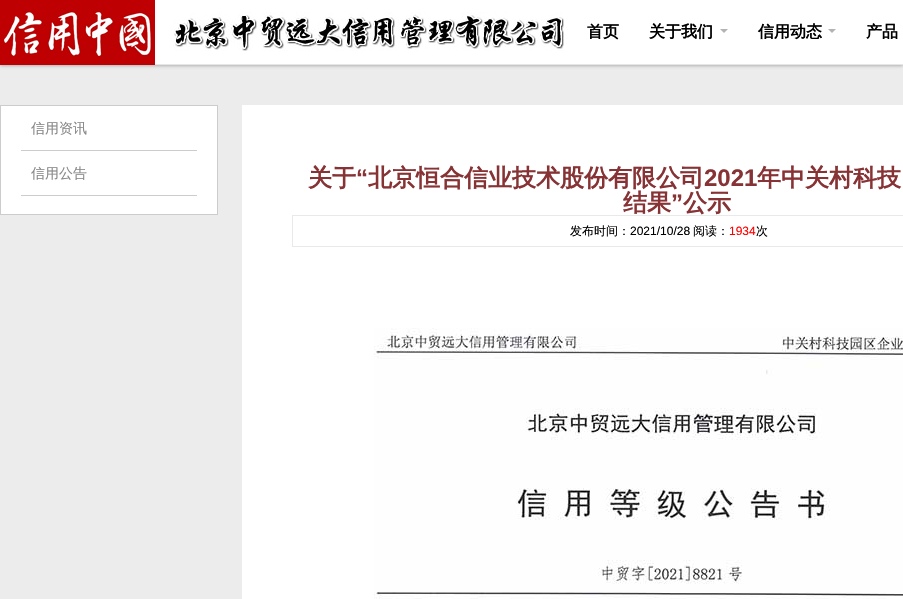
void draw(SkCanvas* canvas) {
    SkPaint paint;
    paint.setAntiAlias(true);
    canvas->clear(0xFFECECEC);
    paint.setColor(0x40000000);
    paint.setMaskFilter(SkMaskFilter::MakeBlur(kNormal_SkBlurStyle, 1.5f));
    canvas->drawRect(SkRect::MakeXYWH(0, 1, 903, 65), paint);
    paint.setMaskFilter(nullptr);
    paint.setColor(0xFFFFFFFF);
    canvas->drawRect(SkRect::MakeXYWH(155, 0, 748, 64), paint);
    paint.setColor(0xFFE6E6E6);
    canvas->drawRect(SkRect::MakeXYWH(155, 64, 748, 1), paint);
    canvas->drawImageRect(SkImages::DeferredFromEncodedData(SkData::MakeFromFileName("img1.png")), SkRect::MakeXYWH(0, 0, 155, 65), SkSamplingOptions());
    canvas->drawImageRect(SkImages::DeferredFromEncodedData(SkData::MakeFromFileName("img2.png")), SkRect::MakeXYWH(173, 12, 391, 39), SkSamplingOptions());
    SkFont font1(fontMgr->matchFamilyStyle("WenQuanYi Zen Hei", SkFontStyle::Bold()), 16);
    font1.setSubpixel(true);
    paint.setColor(0xFF000000);
    canvas->drawString("首页", 587, 37, font1, paint);
    canvas->drawString("关于我们", 649, 37, font1, paint);
    paint.setColor(0xFFB3B3B3);
    canvas->drawPath(SkPathBuilder().moveTo(720, 29).lineTo(728, 29).lineTo(724, 33).close().detach(), paint);
    paint.setColor(0xFF000000);
    canvas->drawString("信用动态", 758, 37, font1, paint);
    paint.setColor(0xFFB3B3B3);
    canvas->drawPath(SkPathBuilder().moveTo(828, 29).lineTo(836, 29).lineTo(832, 33).close().detach(), paint);
    paint.setColor(0xFF000000);
    canvas->drawString("产品", 866, 37, font1, paint);
    paint.setColor(0xFFFFFFFF);
    canvas->drawRect(SkRect::MakeXYWH(0.5f, 105.5f, 217, 109), paint);
    paint.setStyle(SkPaint::kStroke_Style);
    paint.setStrokeWidth(1);
    paint.setColor(0xFFCCCCCC);
    canvas->drawRect(SkRect::MakeXYWH(0.5f, 105.5f, 217, 109), paint);
    paint.setStyle(SkPaint::kFill_Style);
    canvas->drawRect(SkRect::MakeXYWH(21, 150, 176, 1), paint);
    SkFont font2(fontMgr->matchFamilyStyle("WenQuanYi Zen Hei", SkFontStyle(500, SkFontStyle::kNormal_Width, SkFontStyle::kUpright_Slant)), 14);
    font2.setSubpixel(true);
    paint.setColor(0xFF888888);
    canvas->drawString("信用资讯", 31, 133, font2, paint);
    paint.setColor(0xFFCCCCCC);
    canvas->drawRect(SkRect::MakeXYWH(21, 195, 176, 1), paint);
    paint.setColor(0xFF888888);
    canvas->drawString("信用公告", 31, 178, font2, paint);
    paint.setColor(0xFFFFFFFF);
    canvas->drawRect(SkRect::MakeXYWH(242, 105, 661, 494), paint);
    SkFont font3(fontMgr->matchFamilyStyle("WenQuanYi Zen Hei", SkFontStyle::Bold()), 24);
    font3.setSubpixel(true);
    paint.setColor(0xFF873335);
    canvas->drawString("关于", 308, 186, font3, paint);
    SkFont font4(fontMgr->matchFamilyStyle("Liberation Sans", SkFontStyle::Bold()), 24);
    font4.setSubpixel(true);
    canvas->drawString("“", 356, 186, font4, paint);
    canvas->drawString("北京恒合信业技术股份有限公司", 368, 186, font3, paint);
    canvas->drawString("2021", 704, 186, font4, paint);
    canvas->drawString("年中关村科技", 757, 186, font3, paint);
    canvas->drawString("结果", 623, 211, font3, paint);
    canvas->drawString("”", 671, 211, font4, paint);
    canvas->drawString("公示", 683, 211, font3, paint);
    paint.setColor(0xFFE9E9E9);
    canvas->drawRect(SkRect::MakeXYWH(292, 215, 611, 1), paint);
    canvas->drawRect(SkRect::MakeXYWH(292, 246, 611, 1), paint);
    canvas->drawRect(SkRect::MakeXYWH(292, 215, 1, 32), paint);
    SkFont font5(fontMgr->matchFamilyStyle("WenQuanYi Zen Hei", SkFontStyle(500, SkFontStyle::kNormal_Width, SkFontStyle::kUpright_Slant)), 12);
    font5.setSubpixel(true);
    paint.setColor(0xFF000000);
    canvas->drawString("发布时间：", 570, 235, font5, paint);
    SkFont font6(fontMgr->matchFamilyStyle("Liberation Sans", SkFontStyle::Normal()), 12);
    font6.setSubpixel(true);
    canvas->drawString("2021/10/28", 630, 235, font6, paint);
    canvas->drawString("阅读：", 693, 235, font5, paint);
    paint.setColor(0xFFFF0000);
    canvas->drawString("1934", 729, 235, font6, paint);
    paint.setColor(0xFF000000);
    canvas->drawString("次", 756, 235, font5, paint);
    canvas->drawImageRect(SkImages::DeferredFromEncodedData(SkData::MakeFromFileName("img3.png")), SkRect::MakeXYWH(374, 328, 529, 271), SkSamplingOptions());
}
